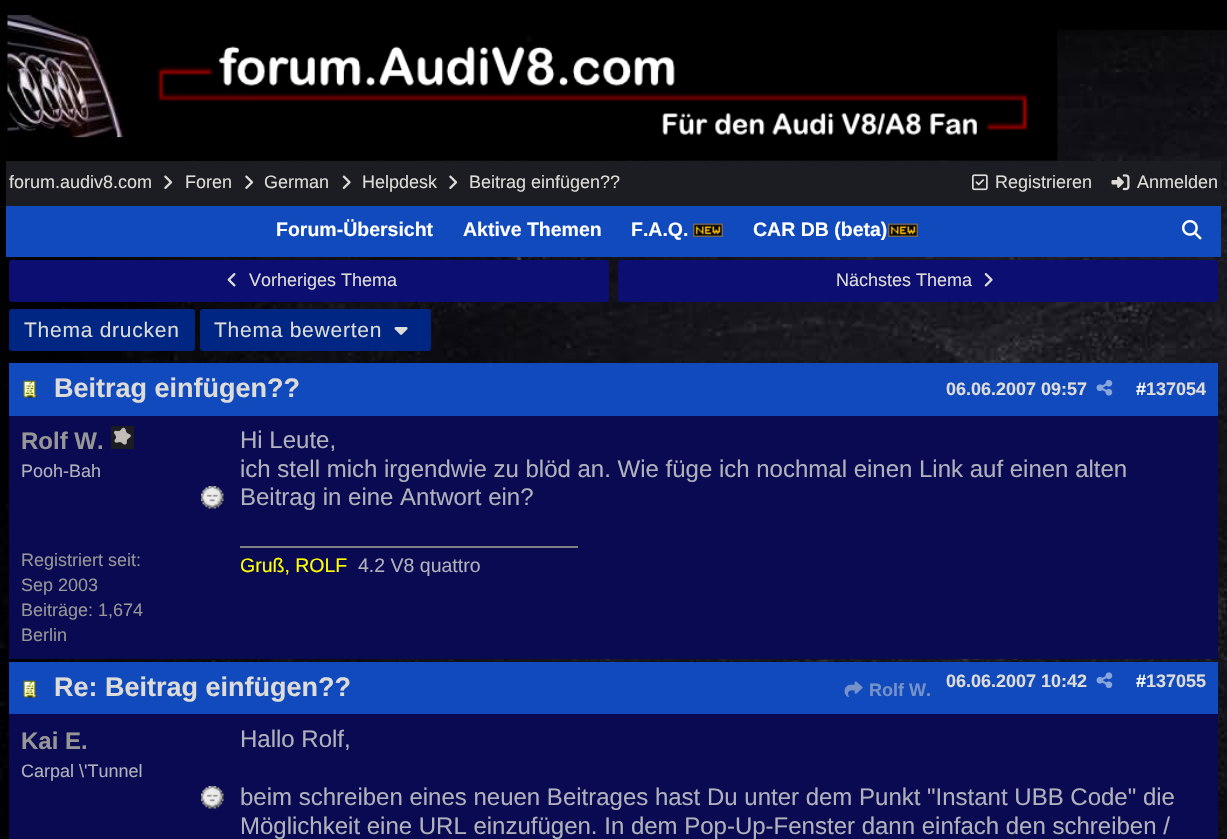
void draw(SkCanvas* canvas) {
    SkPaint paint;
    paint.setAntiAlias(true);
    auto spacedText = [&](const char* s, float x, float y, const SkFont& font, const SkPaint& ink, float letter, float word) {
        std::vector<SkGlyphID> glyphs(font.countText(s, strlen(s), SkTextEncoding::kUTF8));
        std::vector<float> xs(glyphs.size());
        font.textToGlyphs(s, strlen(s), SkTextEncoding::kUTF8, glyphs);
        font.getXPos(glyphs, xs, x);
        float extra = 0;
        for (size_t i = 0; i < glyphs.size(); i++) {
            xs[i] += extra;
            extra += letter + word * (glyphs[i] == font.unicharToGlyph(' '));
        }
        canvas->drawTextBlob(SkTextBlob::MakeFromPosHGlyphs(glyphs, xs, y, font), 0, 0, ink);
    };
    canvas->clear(0xFFFFFFFF);
    canvas->drawImageRect(SkImages::DeferredFromEncodedData(SkData::MakeFromFileName("img1.png")), SkRect::MakeXYWH(0, 30, 1227, 809), SkSamplingOptions());
    paint.setColor(0xFF000000);
    canvas->drawRect(SkRect::MakeXYWH(0, 0, 1227, 30), paint);
    canvas->drawImageRect(SkImages::DeferredFromEncodedData(SkData::MakeFromFileName("img2.png")), SkRect::MakeXYWH(7, 15, 1051, 146), SkSamplingOptions());
    paint.setColor(0xFF1B1D22);
    canvas->drawRect(SkRect::MakeXYWH(6, 161, 1215, 45), paint);
    SkFont font1(fontMgr->matchFamilyStyle("Liberation Sans", SkFontStyle::Normal()), 18);
    font1.setSubpixel(true);
    paint.setColor(0xFFDEDCD8);
    canvas->drawString("forum.audiv8.com", 9, 188, font1, paint);
    canvas->drawImageRect(SkImages::DeferredFromEncodedData(SkData::MakeFromFileName("img3.png")), SkRect::MakeXYWH(164, 175, 9, 14), SkSamplingOptions());
    canvas->drawString("Foren", 185, 188, font1, paint);
    canvas->drawImageRect(SkImages::DeferredFromEncodedData(SkData::MakeFromFileName("img3.png")), SkRect::MakeXYWH(245, 175, 9, 14), SkSamplingOptions());
    canvas->drawString("German", 264, 188, font1, paint);
    canvas->drawImageRect(SkImages::DeferredFromEncodedData(SkData::MakeFromFileName("img4.png")), SkRect::MakeXYWH(342, 175, 9, 14), SkSamplingOptions());
    canvas->drawString("Helpdesk", 362, 188, font1, paint);
    canvas->drawImageRect(SkImages::DeferredFromEncodedData(SkData::MakeFromFileName("img3.png")), SkRect::MakeXYWH(449, 175, 9, 14), SkSamplingOptions());
    canvas->drawString("Beitrag einfügen?\077", 469, 188, font1, paint);
    canvas->drawImageRect(SkImages::DeferredFromEncodedData(SkData::MakeFromFileName("img5.png")), SkRect::MakeXYWH(972, 174, 16, 17), SkSamplingOptions());
    canvas->drawString("Registrieren", 995, 188, font1, paint);
    canvas->drawImageRect(SkImages::DeferredFromEncodedData(SkData::MakeFromFileName("img6.png")), SkRect::MakeXYWH(1111, 174, 19, 17), SkSamplingOptions());
    canvas->drawString("Anmelden", 1137, 188, font1, paint);
    paint.setColor(0xFF104ABC);
    canvas->drawRect(SkRect::MakeXYWH(6, 206, 1215, 51), paint);
    SkFont font2(fontMgr->matchFamilyStyle("Liberation Sans", SkFontStyle::Bold()), 19.5f);
    font2.setSubpixel(true);
    paint.setColor(0xFFFFFFFF);
    canvas->drawString("Forum-Übersicht", 276, 236, font2, paint);
    canvas->drawString("Aktive Themen", 463, 236, font2, paint);
    canvas->drawString("F.A.Q.", 631, 236, font2, paint);
    canvas->drawImageRect(SkImages::DeferredFromEncodedData(SkData::MakeFromFileName("img7.png")), SkRect::MakeXYWH(693, 223, 30, 14), SkSamplingOptions());
    canvas->drawString("CAR DB (beta)", 753, 236, font2, paint);
    canvas->drawImageRect(SkImages::DeferredFromEncodedData(SkData::MakeFromFileName("img7.png")), SkRect::MakeXYWH(888, 223, 30, 14), SkSamplingOptions());
    canvas->drawImageRect(SkImages::DeferredFromEncodedData(SkData::MakeFromFileName("img8.png")), SkRect::MakeXYWH(1182, 219, 20, 21), SkSamplingOptions());
    paint.setColor(0xFF0C0E72);
    canvas->drawRoundRect(SkRect::MakeXYWH(9, 260, 600, 42), 3, 3, paint);
    canvas->drawImageRect(SkImages::DeferredFromEncodedData(SkData::MakeFromFileName("img9.png")), SkRect::MakeXYWH(227, 273, 9, 14), SkSamplingOptions());
    paint.setColor(0xFFDEDCD8);
    canvas->drawString("Vorheriges Thema", 249, 286, font1, paint);
    paint.setColor(0xFF0C0E72);
    canvas->drawRoundRect(SkRect::MakeXYWH(618, 260, 600, 42), 3, 3, paint);
    paint.setColor(0xFFDEDCD8);
    canvas->drawString("Nächstes Thema", 836, 286, font1, paint);
    canvas->drawImageRect(SkImages::DeferredFromEncodedData(SkData::MakeFromFileName("img10.png")), SkRect::MakeXYWH(984, 273, 9, 14), SkSamplingOptions());
    paint.setColor(0xFF002684);
    canvas->drawRoundRect(SkRect::MakeXYWH(9, 309, 186, 42), 3, 3, paint);
    SkFont font3(fontMgr->matchFamilyStyle("Liberation Sans", SkFontStyle::Normal()), 21);
    font3.setSubpixel(true);
    paint.setColor(0xFFDEDCD8);
    spacedText("Thema drucken", 24, 337, font3, paint, 0.75f, 0);
    paint.setColor(0xFF002684);
    canvas->drawRoundRect(SkRect::MakeXYWH(200, 309, 231, 42), 3, 3, paint);
    paint.setColor(0xFFDEDCD8);
    spacedText("Thema bewerten", 214, 337, font3, paint, 0.75f, 0);
    canvas->drawImageRect(SkImages::DeferredFromEncodedData(SkData::MakeFromFileName("img11.png")), SkRect::MakeXYWH(394, 327, 14, 8), SkSamplingOptions());
    paint.setColor(0xFF104ABC);
    canvas->drawRect(SkRect::MakeXYWH(9, 363, 1209, 53), paint);
    canvas->drawImageRect(SkImages::DeferredFromEncodedData(SkData::MakeFromFileName("img12.png")), SkRect::MakeXYWH(23, 380, 14, 18), SkSamplingOptions());
    SkFont font4(fontMgr->matchFamilyStyle("Liberation Sans", SkFontStyle::Bold()), 27);
    font4.setSubpixel(true);
    paint.setColor(0xFFDEDCD8);
    canvas->drawString("Beitrag einfügen?\077", 54, 397, font4, paint);
    SkFont font5(fontMgr->matchFamilyStyle("Liberation Sans", SkFontStyle::Bold()), 18);
    font5.setSubpixel(true);
    canvas->drawString("06.06.2007 09:57", 946, 395, font5, paint);
    canvas->drawImageRect(SkImages::DeferredFromEncodedData(SkData::MakeFromFileName("img13.png")), SkRect::MakeXYWH(1096, 379, 17, 17), SkSamplingOptions());
    paint.setColor(0xFFFFFFFF);
    canvas->drawString("#", 1136, 395, font5, paint);
    paint.setColor(0xFFDEDCD8);
    canvas->drawString("137054", 1146, 395, font5, paint);
    paint.setColor(0xFF090A52);
    canvas->drawRect(SkRect::MakeXYWH(9, 416, 1209, 243), paint);
    SkFont font6(fontMgr->matchFamilyStyle("Liberation Sans", SkFontStyle::Bold()), 24);
    font6.setSubpixel(true);
    paint.setColor(0xFF969696);
    canvas->drawString("Rolf W.", 21, 449, font6, paint);
    paint.setColor(0xFF1B1D22);
    canvas->drawRect(SkRect::MakeXYWH(111, 426, 23, 23), paint);
    canvas->drawImageRect(SkImages::DeferredFromEncodedData(SkData::MakeFromFileName("img14.png")), SkRect::MakeXYWH(114, 427, 17, 18), SkSamplingOptions());
    paint.setColor(0xFFB0B1BB);
    canvas->drawString("Pooh-Bah", 21, 477, font1, paint);
    canvas->drawImageRect(SkImages::DeferredFromEncodedData(SkData::MakeFromFileName("img15.png")), SkRect::MakeXYWH(201, 486, 23, 23), SkSamplingOptions());
    paint.setColor(0xFF969696);
    canvas->drawString("Registriert seit:", 21, 566, font1, paint);
    canvas->drawString("Sep 2003", 21, 591, font1, paint);
    canvas->drawString("Beiträge: 1,674", 21, 616, font1, paint);
    canvas->drawString("Berlin", 21, 641, font1, paint);
    SkFont font7(fontMgr->matchFamilyStyle("Liberation Sans", SkFontStyle::Normal()), 24);
    font7.setSubpixel(true);
    paint.setColor(0xFFB0B1BB);
    canvas->drawString("Hi Leute,", 240, 448, font7, paint);
    canvas->drawString("ich stell mich irgendwie zu blöd an. Wie füge ich nochmal einen Link auf einen alten", 240, 477, font7, paint);
    canvas->drawString("Beitrag in eine Antwort ein?", 240, 505, font7, paint);
    paint.setColor(0xFF808080);
    canvas->drawRect(SkRect::MakeXYWH(240, 546, 338, 2), paint);
    SkFont font8(fontMgr->matchFamilyStyle("Liberation Sans", SkFontStyle::Normal()), 19.5f);
    font8.setSubpixel(true);
    paint.setColor(0xFFFFFF00);
    canvas->drawString("Gruß, ROLF", 240, 572, font8, paint);
    paint.setColor(0xFFB0B1BB);
    canvas->drawString("4.2 V8 quattro", 358, 572, font8, paint);
    paint.setColor(0xFF104ABC);
    canvas->drawRect(SkRect::MakeXYWH(9, 662, 1209, 52), paint);
    canvas->drawImageRect(SkImages::DeferredFromEncodedData(SkData::MakeFromFileName("img12.png")), SkRect::MakeXYWH(23, 680, 14, 18), SkSamplingOptions());
    paint.setColor(0xFFDEDCD8);
    canvas->drawString("Re: Beitrag einfügen?\077", 54, 696, font4, paint);
    canvas->drawImageRect(SkImages::DeferredFromEncodedData(SkData::MakeFromFileName("img16.png")), SkRect::MakeXYWH(844, 681, 19, 17), SkSamplingOptions());
    paint.setColor(0xFF7692C9);
    canvas->drawString("Rolf W.", 869, 696, font5, paint);
    paint.setColor(0xFFDEDCD8);
    canvas->drawString("06.06.2007 10:42", 946, 687, font5, paint);
    canvas->drawImageRect(SkImages::DeferredFromEncodedData(SkData::MakeFromFileName("img17.png")), SkRect::MakeXYWH(1096, 672, 17, 17), SkSamplingOptions());
    paint.setColor(0xFFFFFFFF);
    canvas->drawString("#", 1136, 687, font5, paint);
    paint.setColor(0xFFDEDCD8);
    canvas->drawString("137055", 1146, 687, font5, paint);
    paint.setColor(0xFF090A52);
    canvas->drawRect(SkRect::MakeXYWH(9, 714, 1209, 125), paint);
    paint.setColor(0xFF969696);
    canvas->drawString("Kai E.", 21, 749, font6, paint);
    paint.setColor(0xFFB0B1BB);
    canvas->drawString("Carpal \\'Tunnel", 21, 777, font1, paint);
    canvas->drawImageRect(SkImages::DeferredFromEncodedData(SkData::MakeFromFileName("img15.png")), SkRect::MakeXYWH(201, 786, 23, 23), SkSamplingOptions());
    canvas->drawString("Hallo Rolf,", 240, 747, font7, paint);
    canvas->drawString("beim schreiben eines neuen Beitrages hast Du unter dem Punkt \"Instant UBB Code\" die", 240, 805, font7, paint);
    canvas->drawString("Möglichkeit eine URL einzufügen. In dem Pop-Up-Fenster dann einfach den schreiben /", 240, 834, font7, paint);
}
